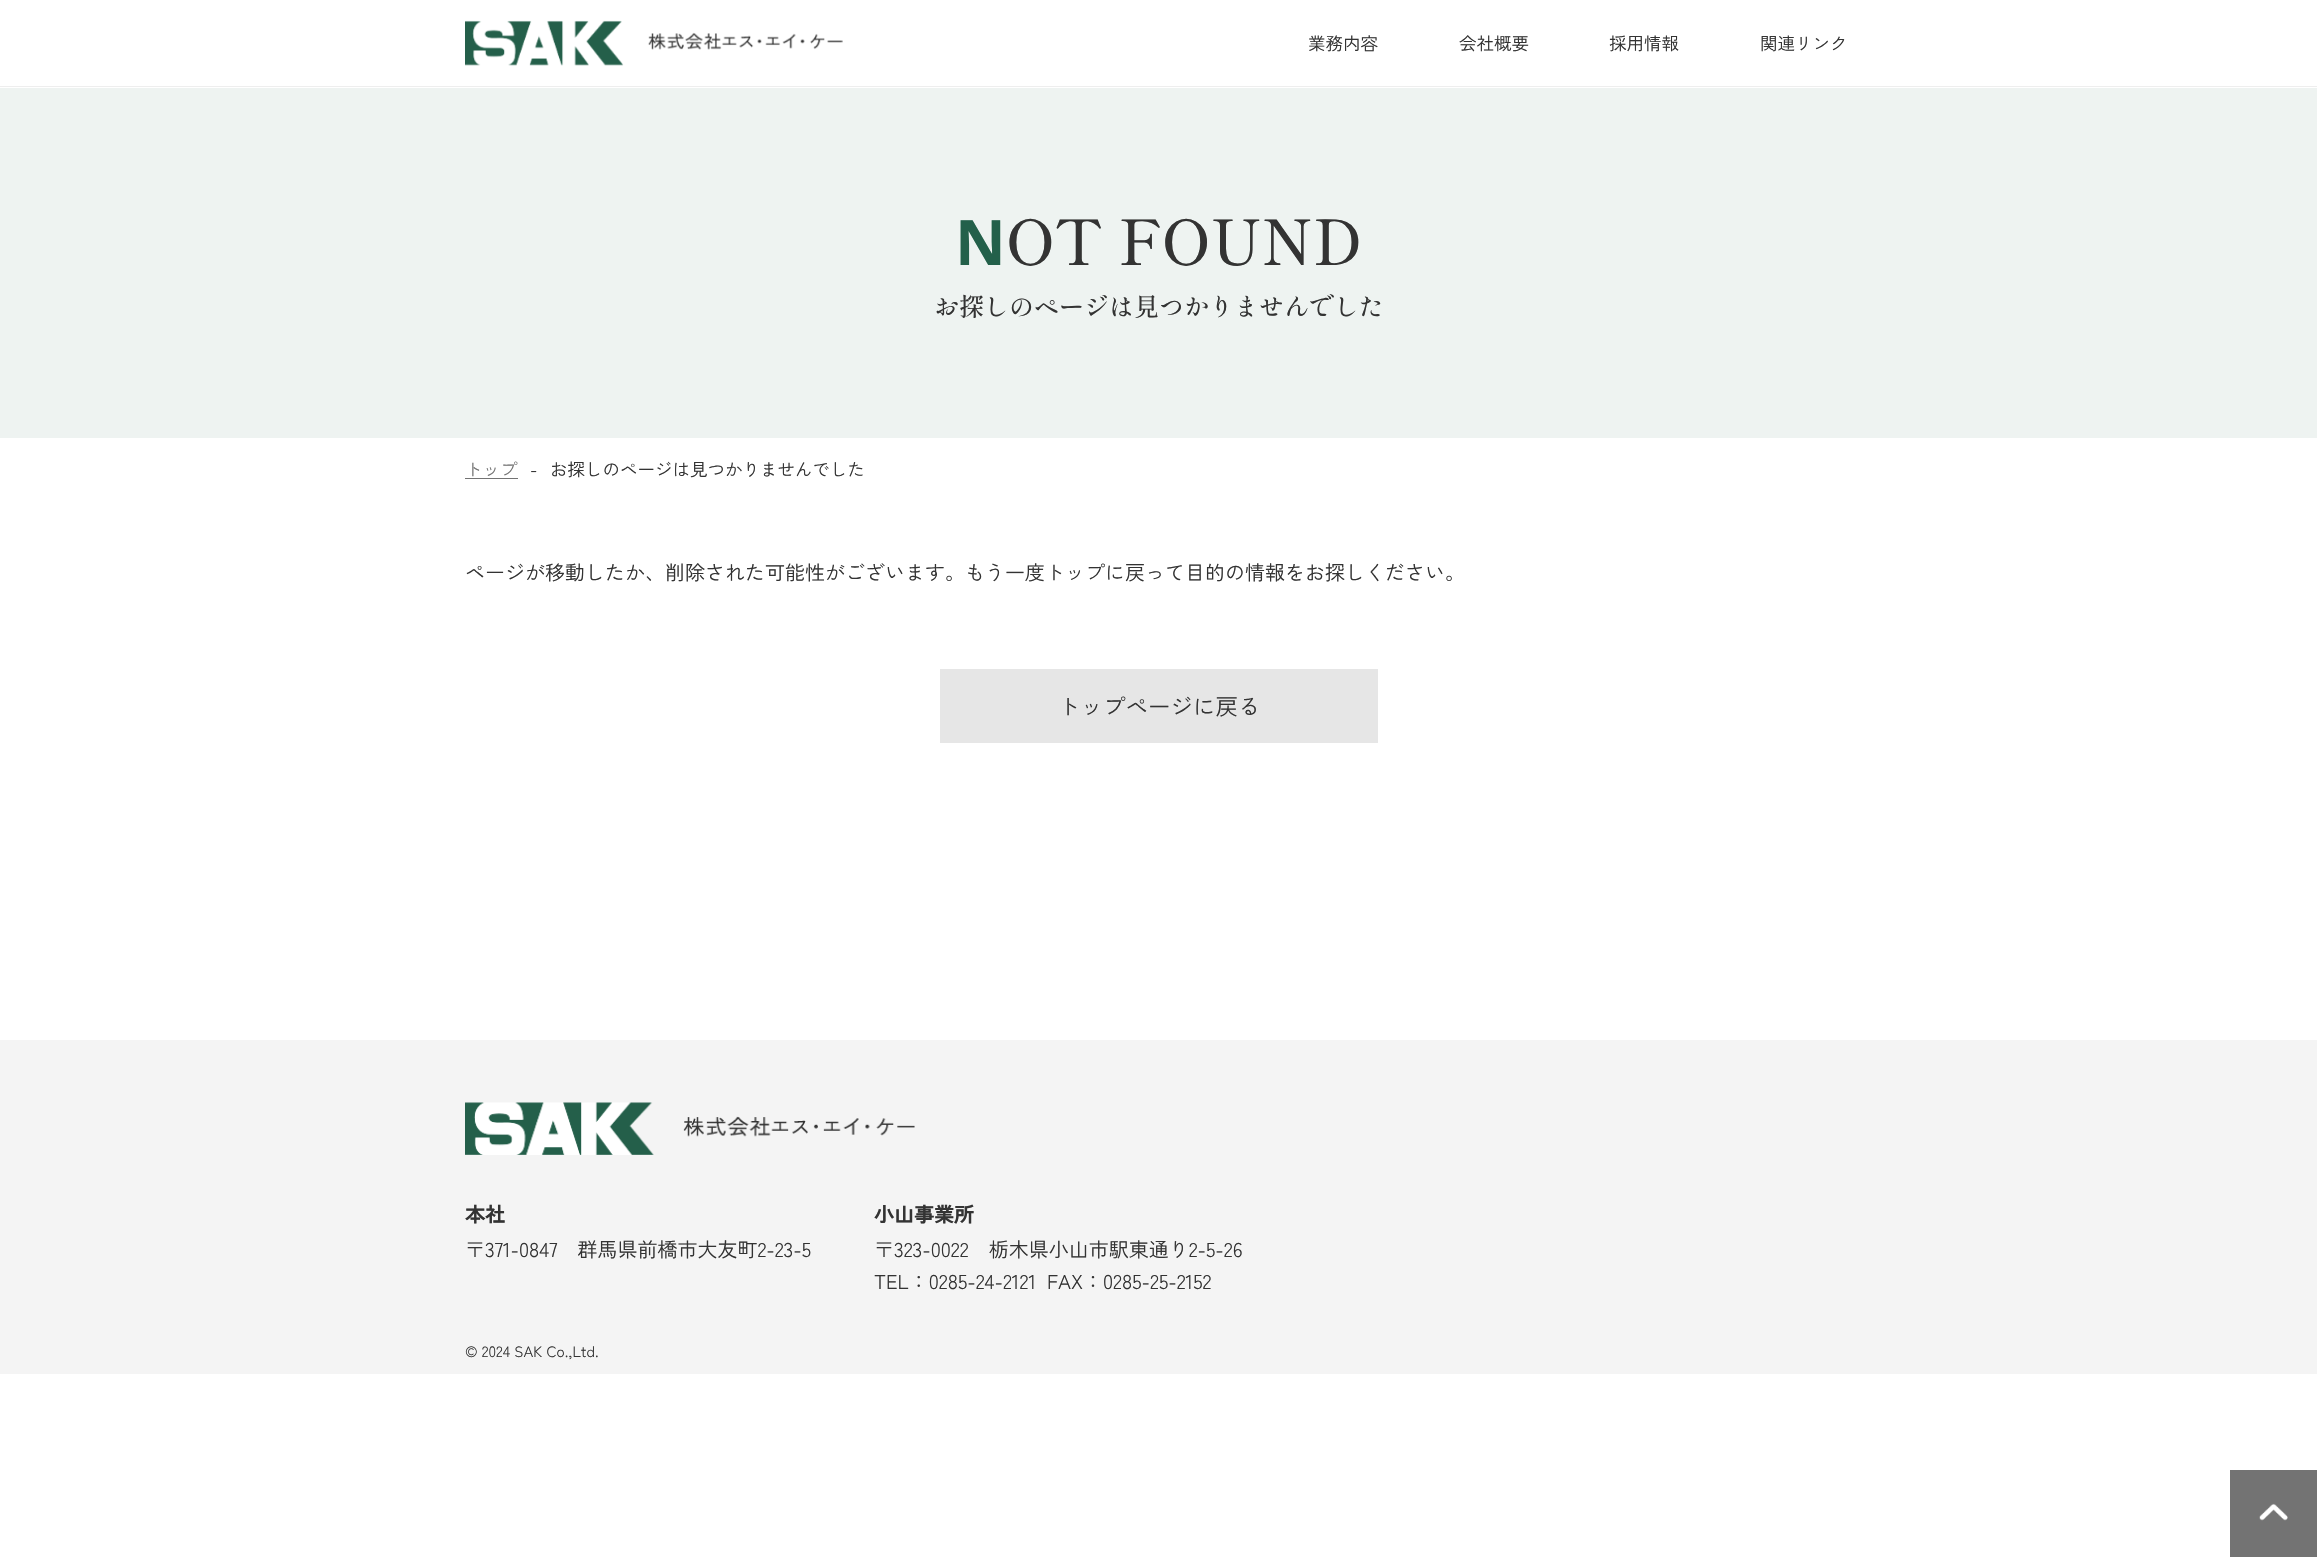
void draw(SkCanvas* canvas) {
    SkPaint paint;
    paint.setAntiAlias(true);
    canvas->clear(0xFFFFFFFF);
    paint.setColor(0xFFEEEEEE);
    canvas->drawRect(SkRect::MakeXYWH(0, 86, 2317, 1), paint);
    canvas->drawImageRect(SkImages::DeferredFromEncodedData(SkData::MakeFromFileName("img1.png")), SkRect::MakeXYWH(465, 20, 378, 46), SkSamplingOptions());
    SkFont font1(fontMgr->matchFamilyStyle("Zen Kaku Gothic New", SkFontStyle::Normal()), 17.5f);
    font1.setSubpixel(true);
    paint.setColor(0xFF333333);
    canvas->drawString("業務内容", 1308, 50, font1, paint);
    canvas->drawString("会社概要", 1459, 50, font1, paint);
    canvas->drawString("採用情報", 1609, 50, font1, paint);
    canvas->drawString("関連リンク", 1760, 50, font1, paint);
    paint.setColor(0xFFEEF3F1);
    canvas->drawRect(SkRect::MakeXYWH(0, 88, 2317, 350), paint);
    SkFont font2(fontMgr->matchFamilyStyle("Noto Sans", SkFontStyle::Bold()), 62.5f);
    font2.setSubpixel(true);
    paint.setColor(0xFF23604A);
    canvas->drawString("N", 955, 265, font2, paint);
    SkFont font3(fontMgr->matchFamilyStyle("Shippori Mincho", SkFontStyle(500, SkFontStyle::kNormal_Width, SkFontStyle::kUpright_Slant)), 62.5f);
    font3.setSubpixel(true);
    paint.setColor(0xFF333333);
    canvas->drawString("OT FOUND", 1006, 265, font3, paint);
    SkFont font4(fontMgr->matchFamilyStyle("Shippori Mincho", SkFontStyle(500, SkFontStyle::kNormal_Width, SkFontStyle::kUpright_Slant)), 25);
    font4.setSubpixel(true);
    canvas->drawString("お探しのページは見つかりませんでした", 934, 316, font4, paint);
    paint.setColor(0xFF737373);
    canvas->drawString("トップ", 465, 476, font1, paint);
    canvas->drawRect(SkRect::MakeXYWH(465, 478, 53, 1), paint);
    paint.setColor(0xFF333333);
    canvas->drawString("-", 530, 476, font1, paint);
    canvas->drawString("お探しのページは見つかりませんでした", 550, 476, font1, paint);
    SkFont font5(fontMgr->matchFamilyStyle("Zen Kaku Gothic New", SkFontStyle::Normal()), 20);
    font5.setSubpixel(true);
    canvas->drawString("ページが移動したか、削除された可能性がございます。もう一度トップに戻って目的の情報をお探しください。", 465, 580, font5, paint);
    paint.setColor(0xFFE6E6E6);
    canvas->drawRect(SkRect::MakeXYWH(940, 669, 438, 74), paint);
    SkFont font6(fontMgr->matchFamilyStyle("Zen Kaku Gothic New", SkFontStyle::Normal()), 22.5f);
    font6.setSubpixel(true);
    paint.setColor(0xFF333333);
    canvas->drawString("トップページに戻る", 1058, 715, font6, paint);
    paint.setColor(0xFFF4F4F4);
    canvas->drawRect(SkRect::MakeXYWH(0, 1040, 2317, 334), paint);
    canvas->drawImageRect(SkImages::DeferredFromEncodedData(SkData::MakeFromFileName("img2.png")), SkRect::MakeXYWH(465, 1102, 450, 53), SkSamplingOptions());
    SkFont font7(fontMgr->matchFamilyStyle("Zen Kaku Gothic New", SkFontStyle::Bold()), 20);
    font7.setSubpixel(true);
    paint.setColor(0xFF333333);
    canvas->drawString("本社", 465, 1222, font7, paint);
    canvas->drawString("〒371-0847　群馬県前橋市大友町2-23-5", 465, 1257, font5, paint);
    canvas->drawString("小山事業所", 874, 1222, font7, paint);
    canvas->drawString("〒323-0022　栃木県小山市駅東通り2-5-26", 874, 1257, font5, paint);
    canvas->drawString("TEL：0285-24-2121", 874, 1289, font5, paint);
    canvas->drawString("FAX：0285-25-2152", 1047, 1289, font5, paint);
    SkFont font8(fontMgr->matchFamilyStyle("Zen Kaku Gothic New", SkFontStyle::Normal()), 15);
    font8.setSubpixel(true);
    canvas->drawString("© 2024 SAK Co.,Ltd.", 465, 1357, font8, paint);
    canvas->drawImageRect(SkImages::DeferredFromEncodedData(SkData::MakeFromFileName("img3.png")), SkRect::MakeXYWH(2230, 1470, 87, 87), SkSamplingOptions());
}
